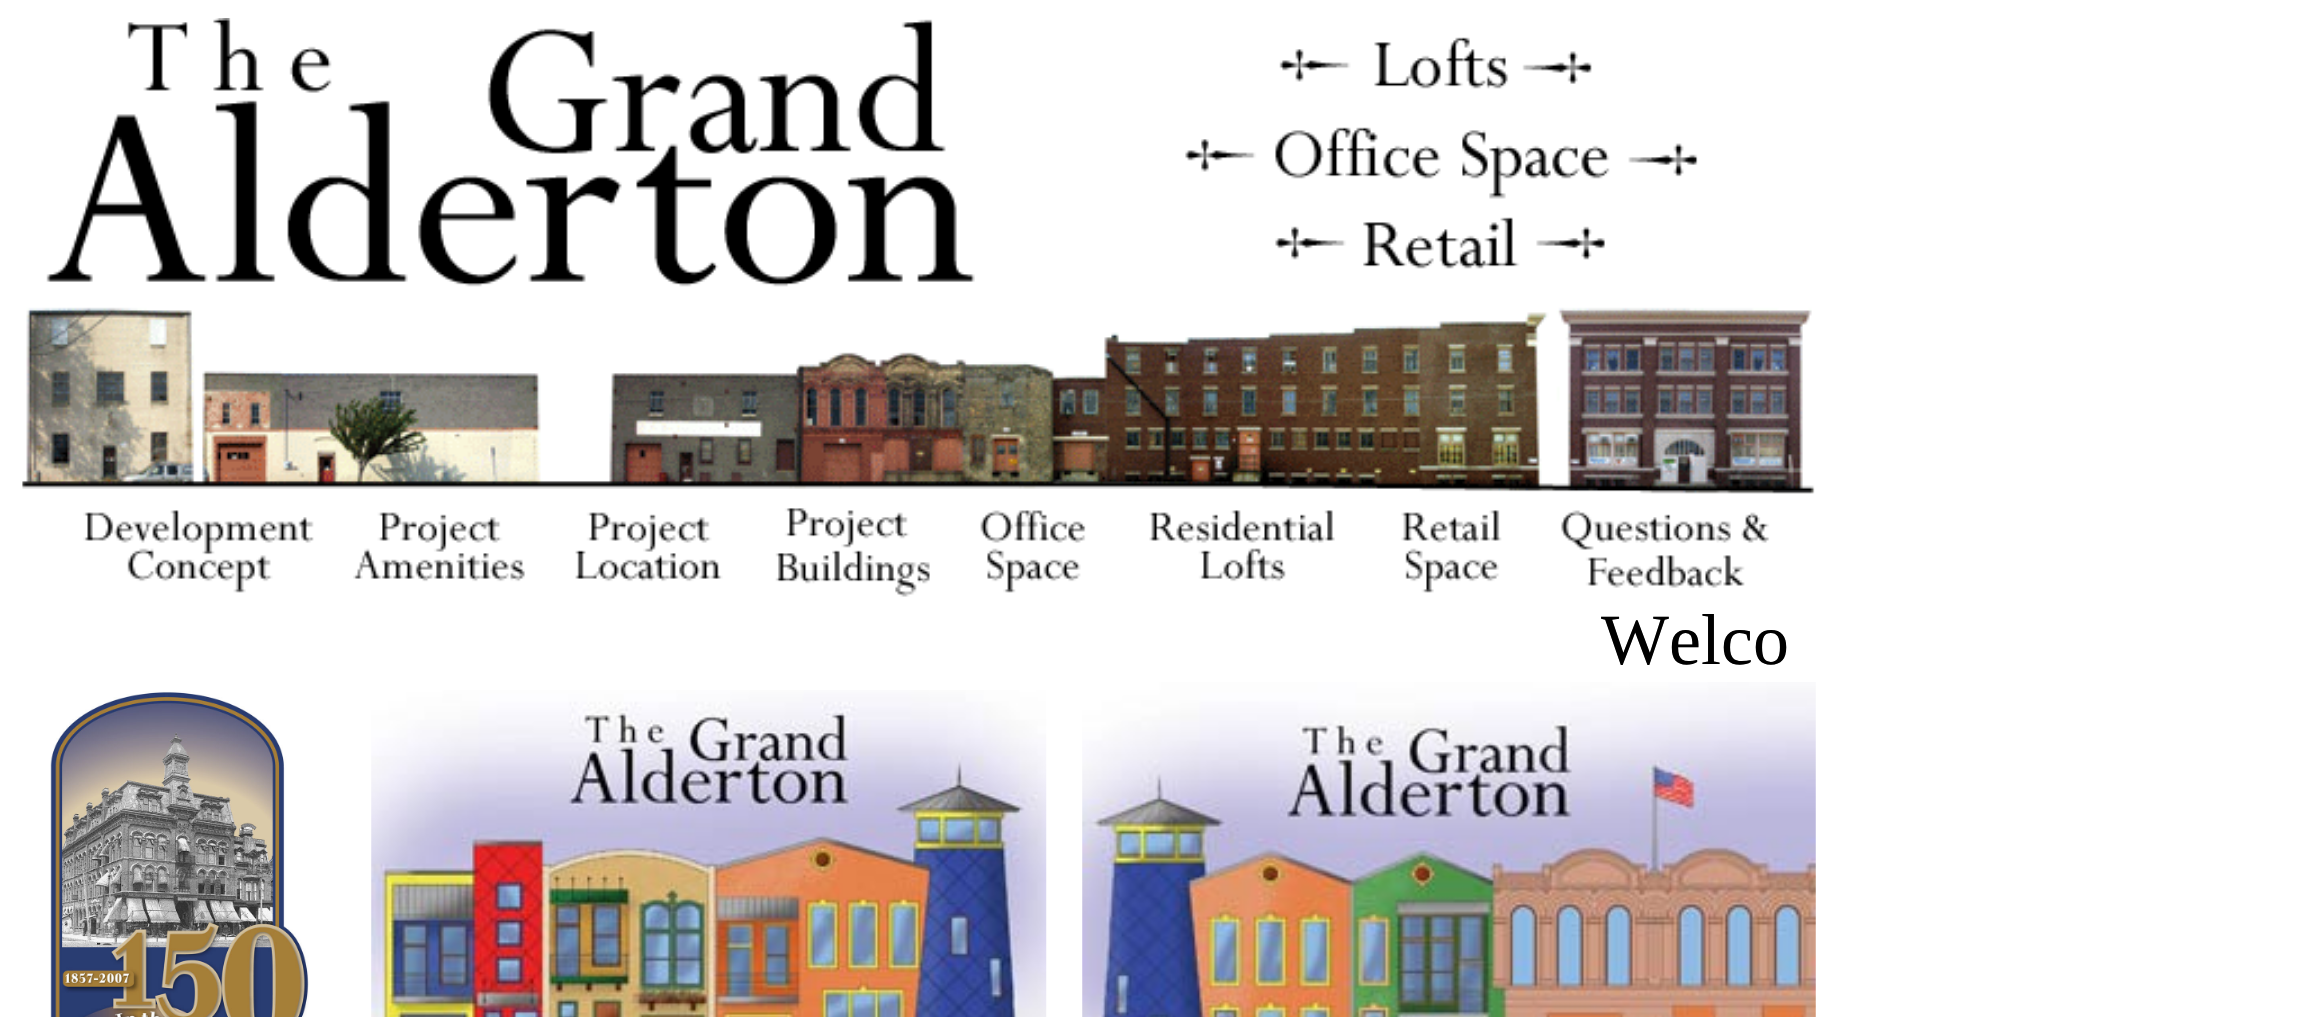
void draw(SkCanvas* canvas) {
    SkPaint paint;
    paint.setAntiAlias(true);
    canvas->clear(0xFFFFFFFF);
    canvas->drawImageRect(SkImages::DeferredFromEncodedData(SkData::MakeFromFileName("img1.png")), SkRect::MakeXYWH(46, 18, 1652, 269), SkSamplingOptions());
    canvas->drawImageRect(SkImages::DeferredFromEncodedData(SkData::MakeFromFileName("img2.png")), SkRect::MakeXYWH(22, 307, 1793, 187), SkSamplingOptions());
    canvas->drawImageRect(SkImages::DeferredFromEncodedData(SkData::MakeFromFileName("img3.png")), SkRect::MakeXYWH(83, 510, 231, 83), SkSamplingOptions());
    canvas->drawImageRect(SkImages::DeferredFromEncodedData(SkData::MakeFromFileName("img4.png")), SkRect::MakeXYWH(353, 512, 172, 70), SkSamplingOptions());
    canvas->drawImageRect(SkImages::DeferredFromEncodedData(SkData::MakeFromFileName("img5.png")), SkRect::MakeXYWH(575, 512, 148, 70), SkSamplingOptions());
    canvas->drawImageRect(SkImages::DeferredFromEncodedData(SkData::MakeFromFileName("img6.png")), SkRect::MakeXYWH(775, 508, 155, 89), SkSamplingOptions());
    canvas->drawImageRect(SkImages::DeferredFromEncodedData(SkData::MakeFromFileName("img7.png")), SkRect::MakeXYWH(980, 510, 106, 83), SkSamplingOptions());
    canvas->drawImageRect(SkImages::DeferredFromEncodedData(SkData::MakeFromFileName("img8.png")), SkRect::MakeXYWH(1149, 510, 186, 72), SkSamplingOptions());
    canvas->drawImageRect(SkImages::DeferredFromEncodedData(SkData::MakeFromFileName("img9.png")), SkRect::MakeXYWH(1401, 510, 101, 83), SkSamplingOptions());
    canvas->drawImageRect(SkImages::DeferredFromEncodedData(SkData::MakeFromFileName("img10.png")), SkRect::MakeXYWH(1561, 510, 209, 78), SkSamplingOptions());
    SkFont font1(fontMgr->matchFamilyStyle("Liberation Serif", SkFontStyle::Normal()), 72);
    font1.setSubpixel(true);
    paint.setColor(0xFF000000);
    canvas->drawString("Welco", 1601, 664, font1, paint);
    canvas->drawImageRect(SkImages::DeferredFromEncodedData(SkData::MakeFromFileName("img11.png")), SkRect::MakeXYWH(371, 690, 676, 327), SkSamplingOptions());
    canvas->drawImageRect(SkImages::DeferredFromEncodedData(SkData::MakeFromFileName("img12.png")), SkRect::MakeXYWH(1082, 682, 734, 335), SkSamplingOptions());
    canvas->drawImageRect(SkImages::DeferredFromEncodedData(SkData::MakeFromFileName("img13.png")), SkRect::MakeXYWH(50, 691, 259, 326), SkSamplingOptions());
}
